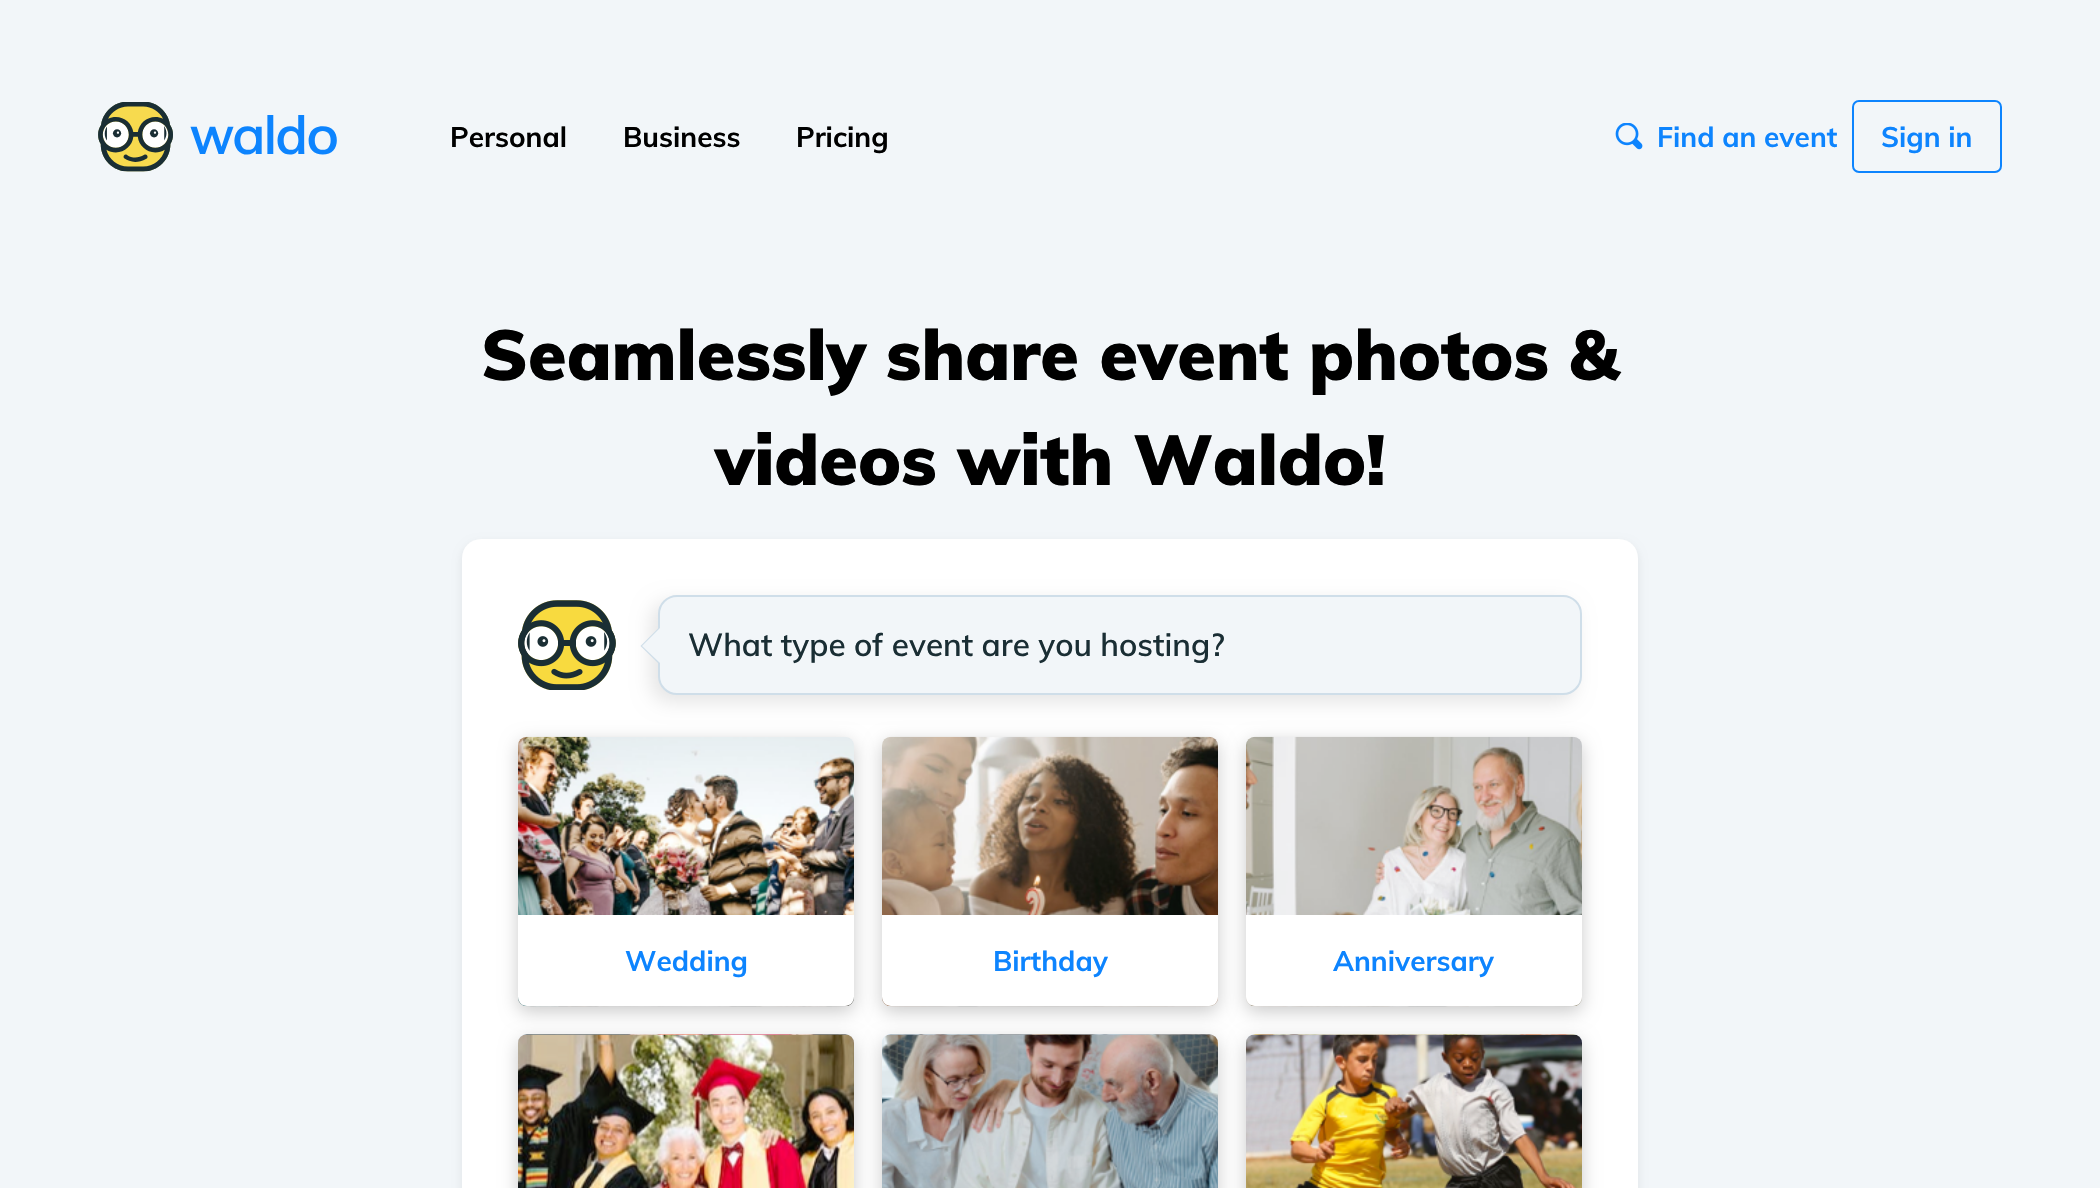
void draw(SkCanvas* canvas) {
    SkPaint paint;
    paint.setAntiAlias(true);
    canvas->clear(0xFFF2F6F9);
    canvas->drawImageRect(SkImages::DeferredFromEncodedData(SkData::MakeFromFileName("img1.png")), SkRect::MakeXYWH(98, 102, 239, 70), SkSamplingOptions());
    SkFont font1(fontMgr->matchFamilyStyle("Muli", SkFontStyle::Bold()), 28);
    font1.setSubpixel(true);
    paint.setColor(0xFF000000);
    canvas->drawString("Personal", 450, 147, font1, paint);
    canvas->drawString("Business", 623, 147, font1, paint);
    canvas->drawString("Pricing", 796, 147, font1, paint);
    canvas->drawImageRect(SkImages::DeferredFromEncodedData(SkData::MakeFromFileName("img2.png")), SkRect::MakeXYWH(1615, 123, 28, 27), SkSamplingOptions());
    paint.setColor(0xFF0D84FE);
    canvas->drawString("Find an event", 1657, 147, font1, paint);
    paint.setStyle(SkPaint::kStroke_Style);
    paint.setStrokeWidth(2);
    canvas->drawRoundRect(SkRect::MakeXYWH(1853, 101, 148, 71), 6, 6, paint);
    paint.setStyle(SkPaint::kFill_Style);
    canvas->drawString("Sign in", 1881, 147, font1, paint);
    SkFont font2(fontMgr->matchFamilyStyle("Muli", SkFontStyle(900, SkFontStyle::kNormal_Width, SkFontStyle::kUpright_Slant)), 70);
    font2.setSubpixel(true);
    paint.setColor(0xFF000000);
    canvas->drawString("Seamlessly share event photos &", 481, 380, font2, paint);
    canvas->drawString("videos with Waldo!", 715, 485, font2, paint);
    paint.setColor(0x0D000000);
    paint.setMaskFilter(SkMaskFilter::MakeBlur(kNormal_SkBlurStyle, 3.5f));
    canvas->drawRoundRect(SkRect::MakeXYWH(460, 541, 1180, 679), 21, 21, paint);
    paint.setMaskFilter(nullptr);
    paint.setColor(0xFFFFFFFF);
    canvas->drawPath(SkPathBuilder().moveTo(481, 539).lineTo(1619, 539).cubicTo(1629.5f, 539, 1638, 547.5f, 1638, 558).lineTo(1638, 1188).lineTo(462, 1188).lineTo(462, 558).cubicTo(462, 547.5f, 470.5f, 539, 481, 539).close().detach(), paint);
    canvas->drawImageRect(SkImages::DeferredFromEncodedData(SkData::MakeFromFileName("img3.png")), SkRect::MakeXYWH(518, 600, 98, 90), SkSamplingOptions());
    paint.setColor(0x1A000000);
    paint.setMaskFilter(SkMaskFilter::MakeBlur(kNormal_SkBlurStyle, 9.5f));
    canvas->drawRoundRect(SkRect::MakeXYWH(651, 602, 924, 100), 19, 19, paint);
    paint.setMaskFilter(nullptr);
    paint.setColor(0xFFF2F6F9);
    canvas->drawRoundRect(SkRect::MakeXYWH(659, 596, 922, 98), 18, 18, paint);
    paint.setStyle(SkPaint::kStroke_Style);
    paint.setColor(0xFFCFDEE9);
    canvas->drawRoundRect(SkRect::MakeXYWH(659, 596, 922, 98), 18, 18, paint);
    paint.setStyle(SkPaint::kFill_Style);
    canvas->drawPath(SkPathBuilder().moveTo(660, 626.5f).lineTo(660, 665).lineTo(640.5f, 646).close().detach(), paint);
    paint.setColor(0xFFF2F6F9);
    canvas->drawPath(SkPathBuilder().moveTo(660, 628).lineTo(660, 663).lineTo(642, 646).close().detach(), paint);
    SkFont font3(fontMgr->matchFamilyStyle("Muli", SkFontStyle(600, SkFontStyle::kNormal_Width, SkFontStyle::kUpright_Slant)), 31.5f);
    font3.setSubpixel(true);
    paint.setColor(0xFF1A2E34);
    canvas->drawString("What type of event are you hosting?", 688, 656, font3, paint);
    paint.setColor(0x33000000);
    paint.setMaskFilter(SkMaskFilter::MakeBlur(kNormal_SkBlurStyle, 9));
    canvas->drawRoundRect(SkRect::MakeXYWH(518, 742, 336, 270), 9, 9, paint);
    paint.setMaskFilter(nullptr);
    canvas->drawImageRect(SkImages::DeferredFromEncodedData(SkData::MakeFromFileName("img4.png")), SkRect::MakeXYWH(518, 736, 336, 271), SkSamplingOptions());
    paint.setColor(0xFFFFFFFF);
    canvas->drawPath(SkPathBuilder().moveTo(518, 915).lineTo(854, 915).lineTo(854, 997).cubicTo(854, 1002, 850, 1006, 845, 1006).lineTo(527, 1006).cubicTo(522, 1006, 518, 1002, 518, 997).close().detach(), paint);
    paint.setColor(0xFF0D84FE);
    canvas->drawString("Wedding", 625, 971, font1, paint);
    paint.setColor(0x33000000);
    paint.setMaskFilter(SkMaskFilter::MakeBlur(kNormal_SkBlurStyle, 9));
    canvas->drawRoundRect(SkRect::MakeXYWH(882, 742, 336, 270), 9, 9, paint);
    paint.setMaskFilter(nullptr);
    canvas->drawImageRect(SkImages::DeferredFromEncodedData(SkData::MakeFromFileName("img5.png")), SkRect::MakeXYWH(882, 736, 336, 271), SkSamplingOptions());
    paint.setColor(0xFFFFFFFF);
    canvas->drawPath(SkPathBuilder().moveTo(882, 915).lineTo(1218, 915).lineTo(1218, 997).cubicTo(1218, 1002, 1214, 1006, 1209, 1006).lineTo(891, 1006).cubicTo(886, 1006, 882, 1002, 882, 997).close().detach(), paint);
    paint.setColor(0xFF0D84FE);
    canvas->drawString("Birthday", 993, 971, font1, paint);
    paint.setColor(0x33000000);
    paint.setMaskFilter(SkMaskFilter::MakeBlur(kNormal_SkBlurStyle, 9));
    canvas->drawRoundRect(SkRect::MakeXYWH(1246, 742, 336, 270), 9, 9, paint);
    paint.setMaskFilter(nullptr);
    canvas->drawImageRect(SkImages::DeferredFromEncodedData(SkData::MakeFromFileName("img6.png")), SkRect::MakeXYWH(1246, 736, 336, 271), SkSamplingOptions());
    paint.setColor(0xFFFFFFFF);
    canvas->drawPath(SkPathBuilder().moveTo(1246, 915).lineTo(1582, 915).lineTo(1582, 997).cubicTo(1582, 1002, 1578, 1006, 1573, 1006).lineTo(1255, 1006).cubicTo(1250, 1006, 1246, 1002, 1246, 997).close().detach(), paint);
    paint.setColor(0xFF0D84FE);
    canvas->drawString("Anniversary", 1333, 971, font1, paint);
    paint.setColor(0x33000000);
    paint.setMaskFilter(SkMaskFilter::MakeBlur(kNormal_SkBlurStyle, 9));
    canvas->drawRoundRect(SkRect::MakeXYWH(518, 1040, 336, 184), 9, 9, paint);
    paint.setMaskFilter(nullptr);
    {
        const SkColor colors[] = {0xFFF2F9FF, 0xFFE2F1FF};
        const float stops[] = {0, 1};
        const SkPoint ends[] = {{854, 1168}, {518, 1168}};
        paint.setShader(SkGradientShader::MakeLinear(ends, colors, stops, 2, SkTileMode::kClamp));
        paint.setAlpha(255);
    }
    canvas->drawPath(SkPathBuilder().moveTo(527, 1034).lineTo(845, 1034).cubicTo(850, 1034, 854, 1038, 854, 1043).lineTo(854, 1188).lineTo(518, 1188).lineTo(518, 1043).cubicTo(518, 1038, 522, 1034, 527, 1034).close().detach(), paint);
    canvas->drawImageRect(SkImages::DeferredFromEncodedData(SkData::MakeFromFileName("img7.png")), SkRect::MakeXYWH(518, 1034, 336, 154), SkSamplingOptions());
    paint.setShader(nullptr);
    paint.setColor(0x33000000);
    paint.setMaskFilter(SkMaskFilter::MakeBlur(kNormal_SkBlurStyle, 9));
    canvas->drawRoundRect(SkRect::MakeXYWH(882, 1040, 336, 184), 9, 9, paint);
    paint.setMaskFilter(nullptr);
    {
        const SkColor colors[] = {0xFFF2F9FF, 0xFFE2F1FF};
        const float stops[] = {0, 1};
        const SkPoint ends[] = {{1218, 1168}, {882, 1168}};
        paint.setShader(SkGradientShader::MakeLinear(ends, colors, stops, 2, SkTileMode::kClamp));
        paint.setAlpha(255);
    }
    canvas->drawPath(SkPathBuilder().moveTo(891, 1034).lineTo(1209, 1034).cubicTo(1214, 1034, 1218, 1038, 1218, 1043).lineTo(1218, 1188).lineTo(882, 1188).lineTo(882, 1043).cubicTo(882, 1038, 886, 1034, 891, 1034).close().detach(), paint);
    canvas->drawImageRect(SkImages::DeferredFromEncodedData(SkData::MakeFromFileName("img8.png")), SkRect::MakeXYWH(882, 1034, 336, 154), SkSamplingOptions());
    paint.setShader(nullptr);
    paint.setColor(0x33000000);
    paint.setMaskFilter(SkMaskFilter::MakeBlur(kNormal_SkBlurStyle, 9));
    canvas->drawRoundRect(SkRect::MakeXYWH(1246, 1040, 336, 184), 9, 9, paint);
    paint.setMaskFilter(nullptr);
    {
        const SkColor colors[] = {0xFFF2F9FF, 0xFFE2F1FF};
        const float stops[] = {0, 1};
        const SkPoint ends[] = {{1582, 1168}, {1246, 1168}};
        paint.setShader(SkGradientShader::MakeLinear(ends, colors, stops, 2, SkTileMode::kClamp));
        paint.setAlpha(255);
    }
    canvas->drawPath(SkPathBuilder().moveTo(1255, 1034).lineTo(1573, 1034).cubicTo(1578, 1034, 1582, 1038, 1582, 1043).lineTo(1582, 1188).lineTo(1246, 1188).lineTo(1246, 1043).cubicTo(1246, 1038, 1250, 1034, 1255, 1034).close().detach(), paint);
    canvas->drawImageRect(SkImages::DeferredFromEncodedData(SkData::MakeFromFileName("img9.png")), SkRect::MakeXYWH(1246, 1034, 336, 154), SkSamplingOptions());
}
